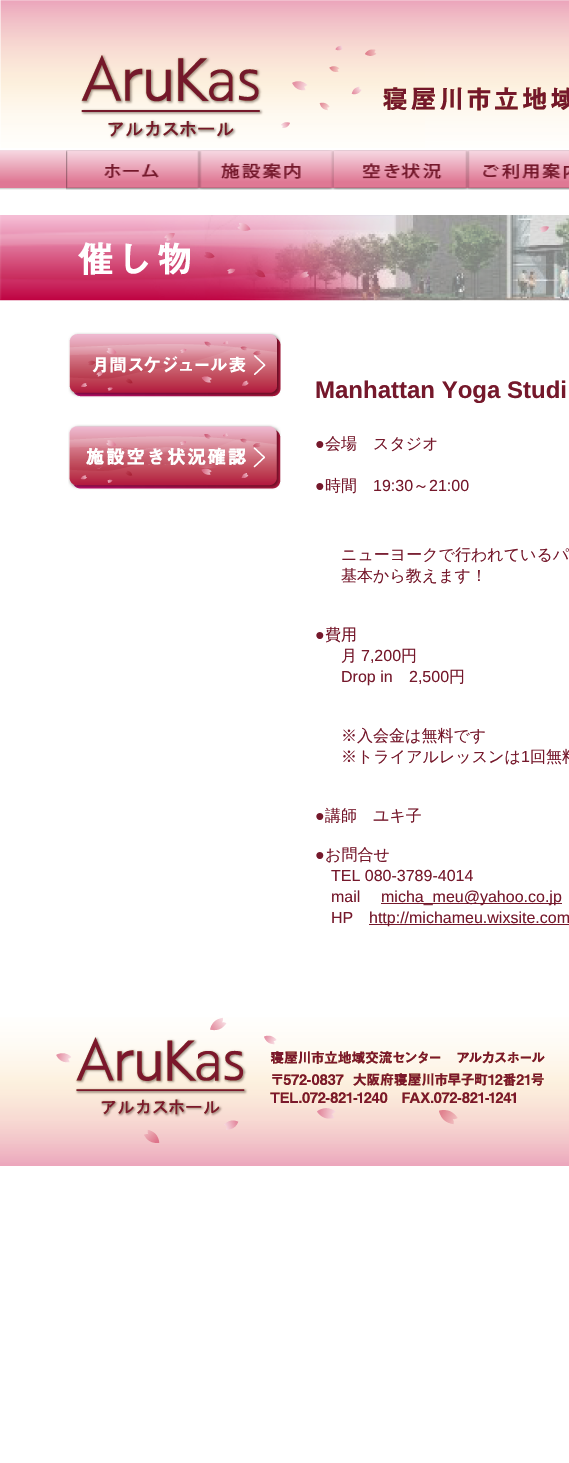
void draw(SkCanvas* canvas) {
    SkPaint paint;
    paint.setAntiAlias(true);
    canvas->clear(0xFFFFFFFF);
    canvas->drawImageRect(SkImages::DeferredFromEncodedData(SkData::MakeFromFileName("img1.png")), SkRect::MakeXYWH(0, 0, 569, 148), SkSamplingOptions());
    canvas->drawImageRect(SkImages::DeferredFromEncodedData(SkData::MakeFromFileName("img2.png")), SkRect::MakeXYWH(0, 150, 569, 40), SkSamplingOptions());
    canvas->drawImageRect(SkImages::DeferredFromEncodedData(SkData::MakeFromFileName("img3.png")), SkRect::MakeXYWH(66, 150, 134, 40), SkSamplingOptions());
    canvas->drawImageRect(SkImages::DeferredFromEncodedData(SkData::MakeFromFileName("img4.png")), SkRect::MakeXYWH(200, 150, 134, 40), SkSamplingOptions());
    canvas->drawImageRect(SkImages::DeferredFromEncodedData(SkData::MakeFromFileName("img5.png")), SkRect::MakeXYWH(334, 150, 134, 40), SkSamplingOptions());
    canvas->drawImageRect(SkImages::DeferredFromEncodedData(SkData::MakeFromFileName("img6.png")), SkRect::MakeXYWH(468, 150, 101, 40), SkSamplingOptions());
    canvas->drawImageRect(SkImages::DeferredFromEncodedData(SkData::MakeFromFileName("img7.png")), SkRect::MakeXYWH(0, 215, 569, 86), SkSamplingOptions());
    canvas->drawImageRect(SkImages::DeferredFromEncodedData(SkData::MakeFromFileName("img8.png")), SkRect::MakeXYWH(68, 332, 213, 66), SkSamplingOptions());
    canvas->drawImageRect(SkImages::DeferredFromEncodedData(SkData::MakeFromFileName("img9.png")), SkRect::MakeXYWH(68, 424, 213, 66), SkSamplingOptions());
    SkFont font1(fontMgr->matchFamilyStyle("Liberation Sans", SkFontStyle::Bold()), 24);
    font1.setSubpixel(true);
    paint.setColor(0xFF75182B);
    canvas->drawString("Manhattan Yoga Studi", 315, 398, font1, paint);
    SkFont font2(fontMgr->matchFamilyStyle("Liberation Sans", SkFontStyle::Normal()), 16);
    font2.setSubpixel(true);
    canvas->drawString("●", 315, 449, font2, paint);
    SkFont font3(fontMgr->matchFamilyStyle("WenQuanYi Zen Hei", SkFontStyle(500, SkFontStyle::kNormal_Width, SkFontStyle::kUpright_Slant)), 16);
    font3.setSubpixel(true);
    canvas->drawString("会場　スタジオ", 325, 449, font3, paint);
    canvas->drawString("●", 315, 491, font2, paint);
    canvas->drawString("時間", 325, 491, font3, paint);
    canvas->drawString("19:30", 373, 491, font2, paint);
    canvas->drawString("～", 413, 491, font3, paint);
    canvas->drawString("21:00", 429, 491, font2, paint);
    canvas->drawString("ニューヨークで行われているパ", 341, 560, font3, paint);
    canvas->drawString("基本から教えます！", 341, 581, font3, paint);
    canvas->drawString("●", 315, 640, font2, paint);
    canvas->drawString("費用", 325, 640, font3, paint);
    canvas->drawString("月", 341, 661, font3, paint);
    canvas->drawString("7,200", 361, 661, font2, paint);
    canvas->drawString("円", 401, 661, font3, paint);
    canvas->drawString("Drop in", 341, 682, font2, paint);
    canvas->drawString("2,500", 409, 682, font2, paint);
    canvas->drawString("円", 449, 682, font3, paint);
    canvas->drawString("※入会金は無料です", 341, 741, font3, paint);
    canvas->drawString("※トライアルレッスンは", 341, 762, font3, paint);
    canvas->drawString("1", 521, 762, font2, paint);
    canvas->drawString("回無料", 530, 762, font3, paint);
    canvas->drawString("●", 315, 821, font2, paint);
    canvas->drawString("講師　ユキ子", 325, 821, font3, paint);
    canvas->drawString("●", 315, 860, font2, paint);
    canvas->drawString("お問合せ", 325, 860, font3, paint);
    canvas->drawString("TEL 080-3789-4014", 331, 881, font2, paint);
    canvas->drawString("mail", 331, 902, font2, paint);
    canvas->drawRect(SkRect::MakeXYWH(381, 903, 181, 1), paint);
    canvas->drawString("micha_meu@yahoo.co.jp", 381, 902, font2, paint);
    canvas->drawString("HP", 331, 923, font2, paint);
    canvas->drawRect(SkRect::MakeXYWH(369, 924, 200, 1), paint);
    canvas->drawString("http://michameu.wixsite.com", 369, 923, font2, paint);
    canvas->drawImageRect(SkImages::DeferredFromEncodedData(SkData::MakeFromFileName("img10.png")), SkRect::MakeXYWH(0, 1017, 569, 149), SkSamplingOptions());
}
